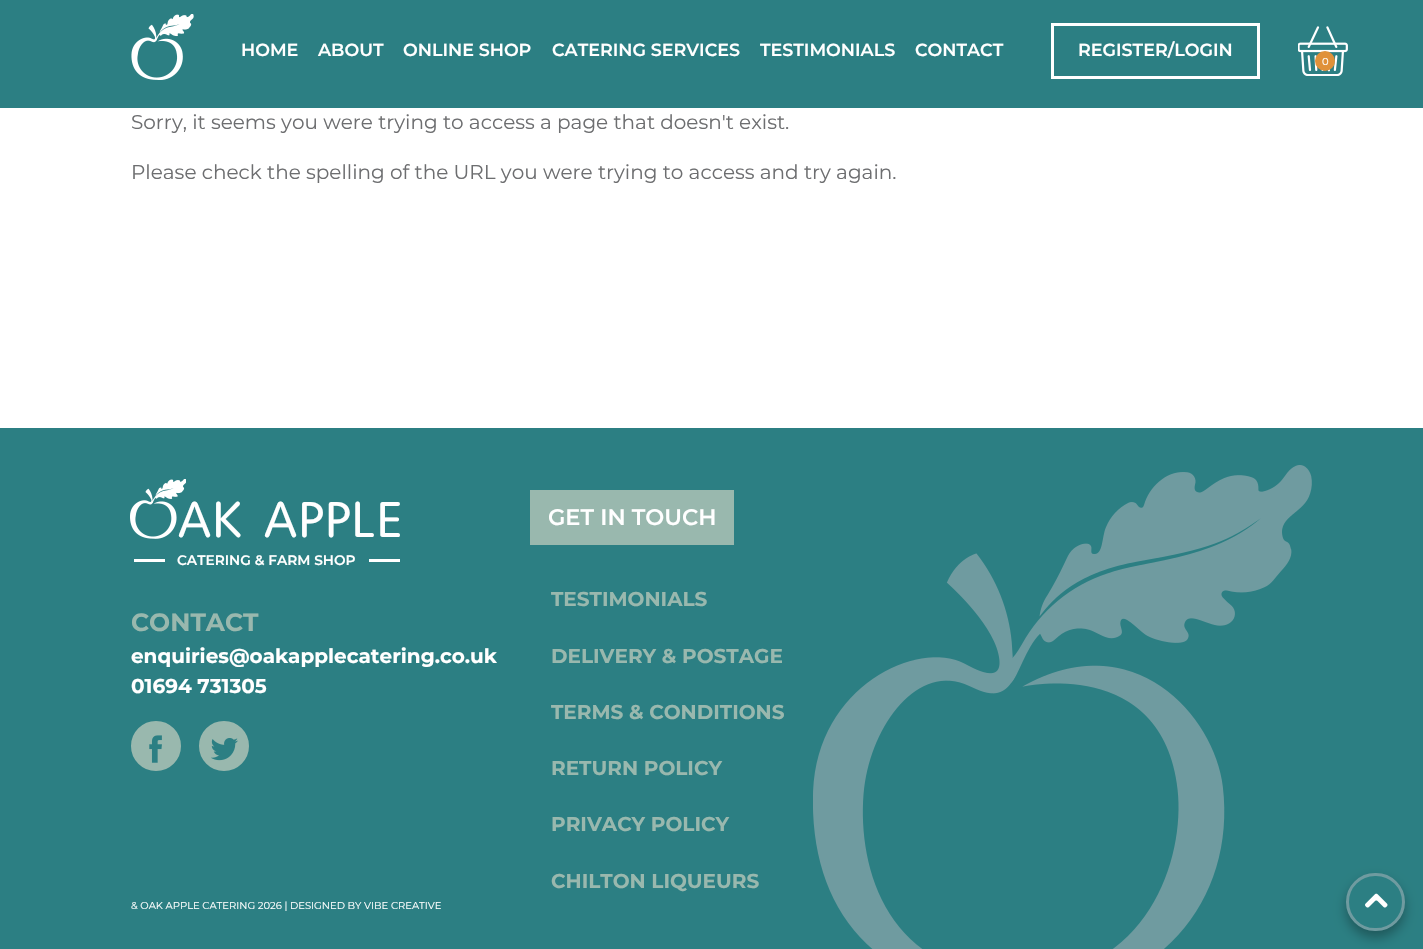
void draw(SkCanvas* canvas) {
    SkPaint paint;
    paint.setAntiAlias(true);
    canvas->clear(0xFFFFFFFF);
    paint.setColor(0xFF2C7F83);
    canvas->drawRect(SkRect::MakeXYWH(0, 0, 1423, 108), paint);
    canvas->drawImageRect(SkImages::DeferredFromEncodedData(SkData::MakeFromFileName("img1.png")), SkRect::MakeXYWH(131, 14, 63, 66), SkSamplingOptions());
    SkFont font1(fontMgr->matchFamilyStyle("Montserrat", SkFontStyle(600, SkFontStyle::kNormal_Width, SkFontStyle::kUpright_Slant)), 17.5f);
    font1.setSubpixel(true);
    paint.setColor(0xFFFFFFFF);
    canvas->drawString("HOME", 241, 56, font1, paint);
    canvas->drawString("ABOUT", 318, 56, font1, paint);
    canvas->drawString("ONLINE SHOP", 403, 56, font1, paint);
    canvas->drawString("CATERING SERVICES", 552, 56, font1, paint);
    canvas->drawString("TESTIMONIALS", 760, 56, font1, paint);
    canvas->drawString("CONTACT", 915, 56, font1, paint);
    paint.setStyle(SkPaint::kStroke_Style);
    paint.setStrokeWidth(3);
    canvas->drawRect(SkRect::MakeXYWH(1052.5f, 24.5f, 206, 53), paint);
    paint.setStyle(SkPaint::kFill_Style);
    canvas->drawString("REGISTER/LOGIN", 1078, 56, font1, paint);
    canvas->drawImageRect(SkImages::DeferredFromEncodedData(SkData::MakeFromFileName("img2.png")), SkRect::MakeXYWH(1298, 26, 50, 50), SkSamplingOptions());
    paint.setColor(0xFFE0913A);
    canvas->drawCircle(1325, 61, 10, paint);
    SkFont font2(fontMgr->matchFamilyStyle("Montserrat", SkFontStyle(100, SkFontStyle::kNormal_Width, SkFontStyle::kUpright_Slant)), 10);
    font2.setSubpixel(true);
    paint.setColor(0xFFFFFFFF);
    canvas->drawString("0", 1322, 65, font2, paint);
    SkFont font3(fontMgr->matchFamilyStyle("Montserrat", SkFontStyle(100, SkFontStyle::kNormal_Width, SkFontStyle::kUpright_Slant)), 20);
    font3.setSubpixel(true);
    paint.setColor(0xFF6D6E70);
    canvas->drawString("Sorry, it seems you were trying to access a page that doesn't exist.", 131, 129, font3, paint);
    canvas->drawString("Please check the spelling of the URL you were trying to access and try again.", 131, 179, font3, paint);
    paint.setColor(0xFF2C7F83);
    canvas->drawRect(SkRect::MakeXYWH(0, 428, 1423, 521), paint);
    canvas->drawImageRect(SkImages::DeferredFromEncodedData(SkData::MakeFromFileName("img3.png")), SkRect::MakeXYWH(813, 465, 499, 484), SkSamplingOptions());
    canvas->drawImageRect(SkImages::DeferredFromEncodedData(SkData::MakeFromFileName("img4.png")), SkRect::MakeXYWH(130, 479, 56, 60), SkSamplingOptions());
    SkFont font4(fontMgr->matchFamilyStyle("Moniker", SkFontStyle::Normal()), 50);
    font4.setSubpixel(true);
    paint.setColor(0xFFFFFFFF);
    canvas->drawString("AK", 177, 537, font4, paint);
    canvas->drawString("APPLE", 263, 537, font4, paint);
    canvas->drawRect(SkRect::MakeXYWH(134, 559, 31, 3), paint);
    SkFont font5(fontMgr->matchFamilyStyle("Montserrat", SkFontStyle(600, SkFontStyle::kNormal_Width, SkFontStyle::kUpright_Slant)), 13.75f);
    font5.setSubpixel(true);
    canvas->drawString("CATERING & FARM SHOP", 177, 565, font5, paint);
    canvas->drawRect(SkRect::MakeXYWH(369, 559, 31, 3), paint);
    SkFont font6(fontMgr->matchFamilyStyle("Montserrat", SkFontStyle::Bold()), 25);
    font6.setSubpixel(true);
    paint.setColor(0xFF99B8AE);
    canvas->drawString("CONTACT", 131, 631, font6, paint);
    SkFont font7(fontMgr->matchFamilyStyle("Montserrat", SkFontStyle::Bold()), 20);
    font7.setSubpixel(true);
    paint.setColor(0xFFFFFFFF);
    canvas->drawString("enquiries@oakapplecatering.co.uk", 131, 663, font7, paint);
    canvas->drawString("01694 731305", 131, 693, font7, paint);
    paint.setColor(0xFF99B8AE);
    canvas->drawCircle(156, 746, 23.5f, paint);
    paint.setStyle(SkPaint::kStroke_Style);
    canvas->drawCircle(156, 746, 23.5f, paint);
    canvas->drawImageRect(SkImages::DeferredFromEncodedData(SkData::MakeFromFileName("img5.png")), SkRect::MakeXYWH(149, 735, 13, 28), SkSamplingOptions());
    paint.setStyle(SkPaint::kFill_Style);
    canvas->drawCircle(224, 746, 23.5f, paint);
    paint.setStyle(SkPaint::kStroke_Style);
    canvas->drawCircle(224, 746, 23.5f, paint);
    canvas->drawImageRect(SkImages::DeferredFromEncodedData(SkData::MakeFromFileName("img6.png")), SkRect::MakeXYWH(211, 738, 27, 23), SkSamplingOptions());
    paint.setStyle(SkPaint::kFill_Style);
    paint.setColor(0xFFFFFFFF);
    canvas->drawString("& OAK APPLE CATERING 2026 | DESIGNED BY VIBE CREATIVE", 131, 909, font2, paint);
    paint.setColor(0xFF99B8AE);
    canvas->drawRect(SkRect::MakeXYWH(530, 490, 204, 55), paint);
    SkFont font8(fontMgr->matchFamilyStyle("Montserrat", SkFontStyle(600, SkFontStyle::kNormal_Width, SkFontStyle::kUpright_Slant)), 22.5f);
    font8.setSubpixel(true);
    paint.setColor(0xFFFFFFFF);
    canvas->drawString("GET IN TOUCH", 548, 525, font8, paint);
    paint.setColor(0xFF99B8AE);
    canvas->drawString("TESTIMONIALS", 551, 606, font7, paint);
    canvas->drawString("DELIVERY & POSTAGE", 551, 663, font7, paint);
    canvas->drawString("TERMS & CONDITIONS", 551, 719, font7, paint);
    canvas->drawString("RETURN POLICY", 551, 775, font7, paint);
    canvas->drawString("PRIVACY POLICY", 551, 831, font7, paint);
    canvas->drawString("CHILTON LIQUEURS", 551, 888, font7, paint);
    paint.setColor(0x4D000000);
    paint.setMaskFilter(SkMaskFilter::MakeBlur(kNormal_SkBlurStyle, 6));
    canvas->drawRoundRect(SkRect::MakeXYWH(1346, 879, 59, 59), 29.5f, 29.5f, paint);
    paint.setMaskFilter(nullptr);
    paint.setColor(0xFF2C7F83);
    canvas->drawRoundRect(SkRect::MakeXYWH(1347.5f, 874.5f, 56, 55), 27.5f, 27.5f, paint);
    paint.setStyle(SkPaint::kStroke_Style);
    paint.setColor(0xFF6F9BA0);
    canvas->drawRoundRect(SkRect::MakeXYWH(1347.5f, 874.5f, 56, 55), 27.5f, 27.5f, paint);
    canvas->drawImageRect(SkImages::DeferredFromEncodedData(SkData::MakeFromFileName("img7.png")), SkRect::MakeXYWH(1365, 893, 23, 15), SkSamplingOptions());
}
